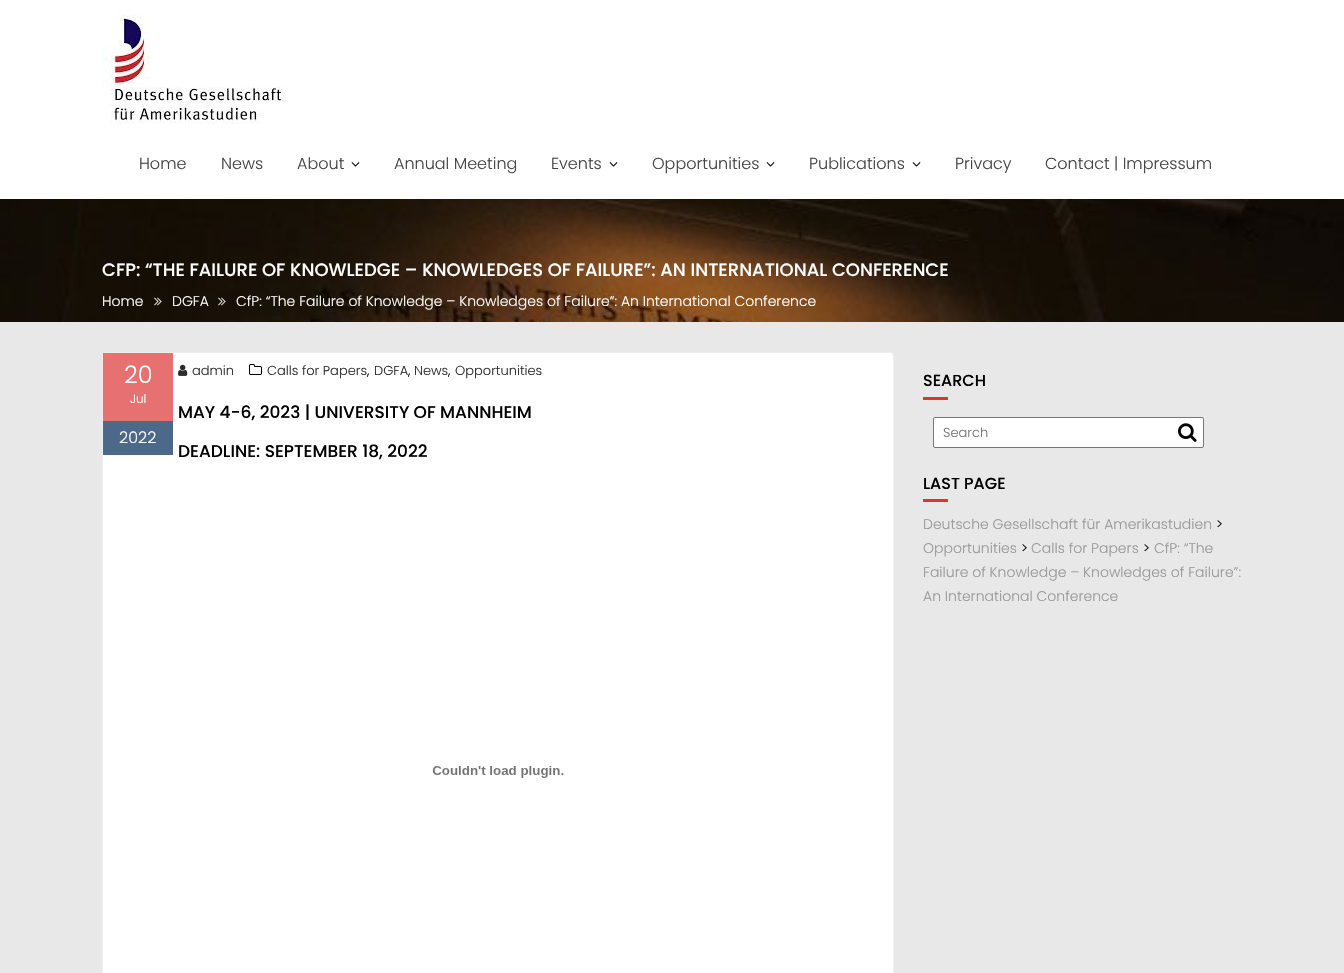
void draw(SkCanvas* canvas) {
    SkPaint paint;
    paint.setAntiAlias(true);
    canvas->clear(0xFFE8E8E8);
    paint.setColor(0xFFFFFFFF);
    canvas->drawRect(SkRect::MakeXYWH(0, 0, 1344, 199), paint);
    canvas->drawImageRect(SkImages::DeferredFromEncodedData(SkData::MakeFromFileName("img1.png")), SkRect::MakeXYWH(102, 15, 184, 109), SkSamplingOptions());
    SkFont font1(fontMgr->matchFamilyStyle("Poppins", SkFontStyle(300, SkFontStyle::kNormal_Width, SkFontStyle::kUpright_Slant)), 16);
    font1.setSubpixel(true);
    paint.setColor(0xFF444444);
    canvas->drawString("Home", 139, 169, font1, paint);
    canvas->drawString("News", 221, 169, font1, paint);
    canvas->drawString("About", 297, 169, font1, paint);
    canvas->drawImageRect(SkImages::DeferredFromEncodedData(SkData::MakeFromFileName("img2.png")), SkRect::MakeXYWH(351, 162, 9, 5), SkSamplingOptions());
    canvas->drawString("Annual Meeting", 394, 169, font1, paint);
    canvas->drawString("Events", 551, 169, font1, paint);
    canvas->drawImageRect(SkImages::DeferredFromEncodedData(SkData::MakeFromFileName("img2.png")), SkRect::MakeXYWH(609, 162, 9, 5), SkSamplingOptions());
    canvas->drawString("Opportunities", 652, 169, font1, paint);
    canvas->drawImageRect(SkImages::DeferredFromEncodedData(SkData::MakeFromFileName("img2.png")), SkRect::MakeXYWH(766, 162, 9, 5), SkSamplingOptions());
    canvas->drawString("Publications", 809, 169, font1, paint);
    canvas->drawImageRect(SkImages::DeferredFromEncodedData(SkData::MakeFromFileName("img2.png")), SkRect::MakeXYWH(912, 162, 9, 5), SkSamplingOptions());
    canvas->drawString("Privacy", 955, 169, font1, paint);
    canvas->drawString("Contact | Impressum", 1045, 169, font1, paint);
    canvas->drawImageRect(SkImages::DeferredFromEncodedData(SkData::MakeFromFileName("img3.png")), SkRect::MakeXYWH(0, 199, 1344, 123), SkSamplingOptions());
    SkFont font2(fontMgr->matchFamilyStyle("Poppins", SkFontStyle(500, SkFontStyle::kNormal_Width, SkFontStyle::kUpright_Slant)), 18);
    font2.setSubpixel(true);
    paint.setColor(0xFFFFFFFF);
    canvas->drawString("CFP: “THE FAILURE OF KNOWLEDGE – KNOWLEDGES OF FAILURE”: AN INTERNATIONAL CONFERENCE", 102, 276, font2, paint);
    SkFont font3(fontMgr->matchFamilyStyle("Poppins", SkFontStyle(300, SkFontStyle::kNormal_Width, SkFontStyle::kUpright_Slant)), 14);
    font3.setSubpixel(true);
    canvas->drawString("Home", 102, 306, font3, paint);
    canvas->drawImageRect(SkImages::DeferredFromEncodedData(SkData::MakeFromFileName("img4.png")), SkRect::MakeXYWH(154, 297, 8, 9), SkSamplingOptions());
    canvas->drawString("DGFA", 172, 306, font3, paint);
    canvas->drawImageRect(SkImages::DeferredFromEncodedData(SkData::MakeFromFileName("img5.png")), SkRect::MakeXYWH(218, 297, 8, 9), SkSamplingOptions());
    canvas->drawString("CfP: “The Failure of Knowledge – Knowledges of Failure”: An International Conference", 236, 306, font3, paint);
    canvas->drawRoundRect(SkRect::MakeXYWH(102.5f, 352.5f, 791, 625), 3.5f, 3.5f, paint);
    paint.setStyle(SkPaint::kStroke_Style);
    paint.setStrokeWidth(1);
    paint.setColor(0xFFEEEEEE);
    canvas->drawRoundRect(SkRect::MakeXYWH(102.5f, 352.5f, 791, 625), 3.5f, 3.5f, paint);
    paint.setStyle(SkPaint::kFill_Style);
    paint.setColor(0xB3DD3333);
    canvas->drawRect(SkRect::MakeXYWH(103, 353, 70, 68), paint);
    SkFont font4(fontMgr->matchFamilyStyle("Poppins", SkFontStyle(300, SkFontStyle::kNormal_Width, SkFontStyle::kUpright_Slant)), 24);
    font4.setSubpixel(true);
    paint.setColor(0xFFFFFFFF);
    canvas->drawString("20", 124, 383, font4, paint);
    SkFont font5(fontMgr->matchFamilyStyle("Poppins", SkFontStyle(300, SkFontStyle::kNormal_Width, SkFontStyle::kUpright_Slant)), 12);
    font5.setSubpixel(true);
    canvas->drawString("Jul", 130, 403, font5, paint);
    paint.setColor(0xFF4D698A);
    canvas->drawRect(SkRect::MakeXYWH(103, 421, 70, 34), paint);
    paint.setColor(0xFFFFFFFF);
    canvas->drawString("2022", 119, 443, font1, paint);
    canvas->drawImageRect(SkImages::DeferredFromEncodedData(SkData::MakeFromFileName("img6.png")), SkRect::MakeXYWH(178, 364, 10, 12), SkSamplingOptions());
    SkFont font6(fontMgr->matchFamilyStyle("Poppins", SkFontStyle(300, SkFontStyle::kNormal_Width, SkFontStyle::kUpright_Slant)), 13);
    font6.setSubpixel(true);
    paint.setColor(0xFF2D2D2D);
    canvas->drawString("admin", 192, 375, font6, paint);
    canvas->drawImageRect(SkImages::DeferredFromEncodedData(SkData::MakeFromFileName("img7.png")), SkRect::MakeXYWH(249, 364, 13, 11), SkSamplingOptions());
    canvas->drawString("Calls for Papers", 267, 375, font6, paint);
    paint.setColor(0xFF000000);
    canvas->drawString(",", 367, 375, font3, paint);
    paint.setColor(0xFF2D2D2D);
    canvas->drawString("DGFA", 374, 375, font6, paint);
    paint.setColor(0xFF000000);
    canvas->drawString(",", 408, 375, font3, paint);
    paint.setColor(0xFF2D2D2D);
    canvas->drawString("News", 414, 375, font6, paint);
    paint.setColor(0xFF000000);
    canvas->drawString(",", 448, 375, font3, paint);
    paint.setColor(0xFF2D2D2D);
    canvas->drawString("Opportunities", 455, 375, font6, paint);
    SkFont font7(fontMgr->matchFamilyStyle("Poppins", SkFontStyle(500, SkFontStyle::kNormal_Width, SkFontStyle::kUpright_Slant)), 17);
    font7.setSubpixel(true);
    paint.setColor(0xFF000000);
    canvas->drawString("MAY 4-6, 2023 | UNIVERSITY OF MANNHEIM", 178, 418, font7, paint);
    canvas->drawString("DEADLINE: SEPTEMBER 18, 2022", 178, 457, font7, paint);
    canvas->drawImageRect(SkImages::DeferredFromEncodedData(SkData::MakeFromFileName("img8.png")), SkRect::MakeXYWH(432, 766, 132, 12), SkSamplingOptions());
    SkFont font8(fontMgr->matchFamilyStyle("Poppins", SkFontStyle(500, SkFontStyle::kNormal_Width, SkFontStyle::kUpright_Slant)), 16);
    font8.setSubpixel(true);
    canvas->drawString("SEARCH", 923, 386, font8, paint);
    paint.setColor(0xFFDD3333);
    canvas->drawRect(SkRect::MakeXYWH(923, 397, 25, 3), paint);
    paint.setColor(0xFFFFFFFF);
    canvas->drawRoundRect(SkRect::MakeXYWH(933.5f, 417.5f, 270, 30), 1.5f, 1.5f, paint);
    paint.setStyle(SkPaint::kStroke_Style);
    paint.setColor(0xFF767676);
    canvas->drawRoundRect(SkRect::MakeXYWH(933.5f, 417.5f, 270, 30), 1.5f, 1.5f, paint);
    paint.setStyle(SkPaint::kFill_Style);
    paint.setColor(0xFF757575);
    canvas->drawString("Search", 943, 437, font6, paint);
    canvas->drawImageRect(SkImages::DeferredFromEncodedData(SkData::MakeFromFileName("img9.png")), SkRect::MakeXYWH(1178, 423, 19, 19), SkSamplingOptions());
    paint.setColor(0xFF000000);
    canvas->drawString("LAST PAGE", 923, 489, font8, paint);
    paint.setColor(0xFFDD3333);
    canvas->drawRect(SkRect::MakeXYWH(923, 499, 25, 3), paint);
    paint.setColor(0xFF999999);
    canvas->drawString("Deutsche Gesellschaft für Amerikastudien", 923, 529, font3, paint);
    paint.setColor(0xFF000000);
    canvas->drawString(">", 1216, 529, font3, paint);
    paint.setColor(0xFF999999);
    canvas->drawString("Opportunities", 923, 553, font3, paint);
    paint.setColor(0xFF000000);
    canvas->drawString(">", 1021, 553, font3, paint);
    paint.setColor(0xFF999999);
    canvas->drawString("Calls for Papers", 1031, 553, font3, paint);
    paint.setColor(0xFF000000);
    canvas->drawString(">", 1143, 553, font3, paint);
    paint.setColor(0xFF999999);
    canvas->drawString("CfP: “The", 1154, 553, font3, paint);
    canvas->drawString("Failure of Knowledge – Knowledges of Failure”:", 923, 577, font3, paint);
    canvas->drawString("An International Conference", 923, 601, font3, paint);
}
